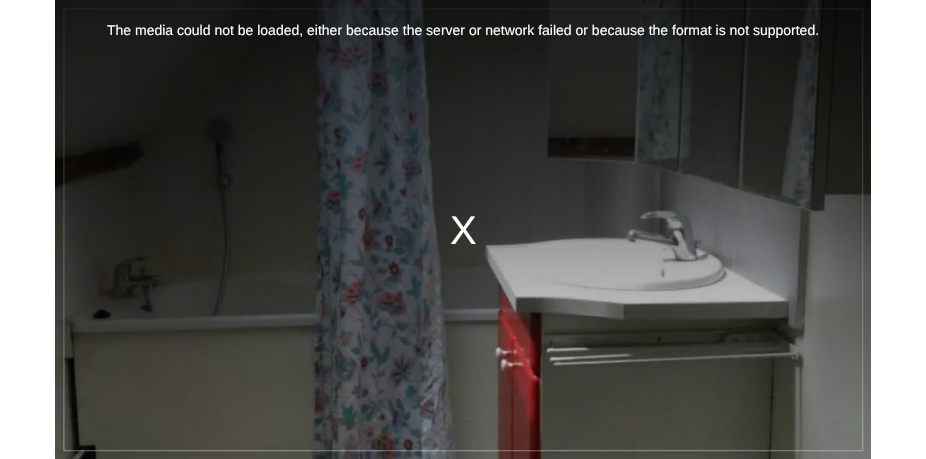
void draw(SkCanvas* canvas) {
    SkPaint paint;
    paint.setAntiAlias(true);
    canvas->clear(0xFFFFFFFF);
    canvas->drawImageRect(SkImages::DeferredFromEncodedData(SkData::MakeFromFileName("img1.png")), SkRect::MakeXYWH(55, 0, 816, 459), SkSamplingOptions());
    SkFont font1(fontMgr->matchFamilyStyle("Liberation Sans", SkFontStyle::Normal()), 14);
    font1.setSubpixel(true);
    paint.setColor(0xFFFFFFFF);
    canvas->drawString("The media could not be loaded, either because the server or network failed or because the format is not supported.", 107, 35, font1, paint);
    SkFont font2(fontMgr->matchFamilyStyle("Liberation Sans", SkFontStyle::Normal()), 40);
    font2.setSubpixel(true);
    canvas->drawString("X", 450, 244, font2, paint);
}
